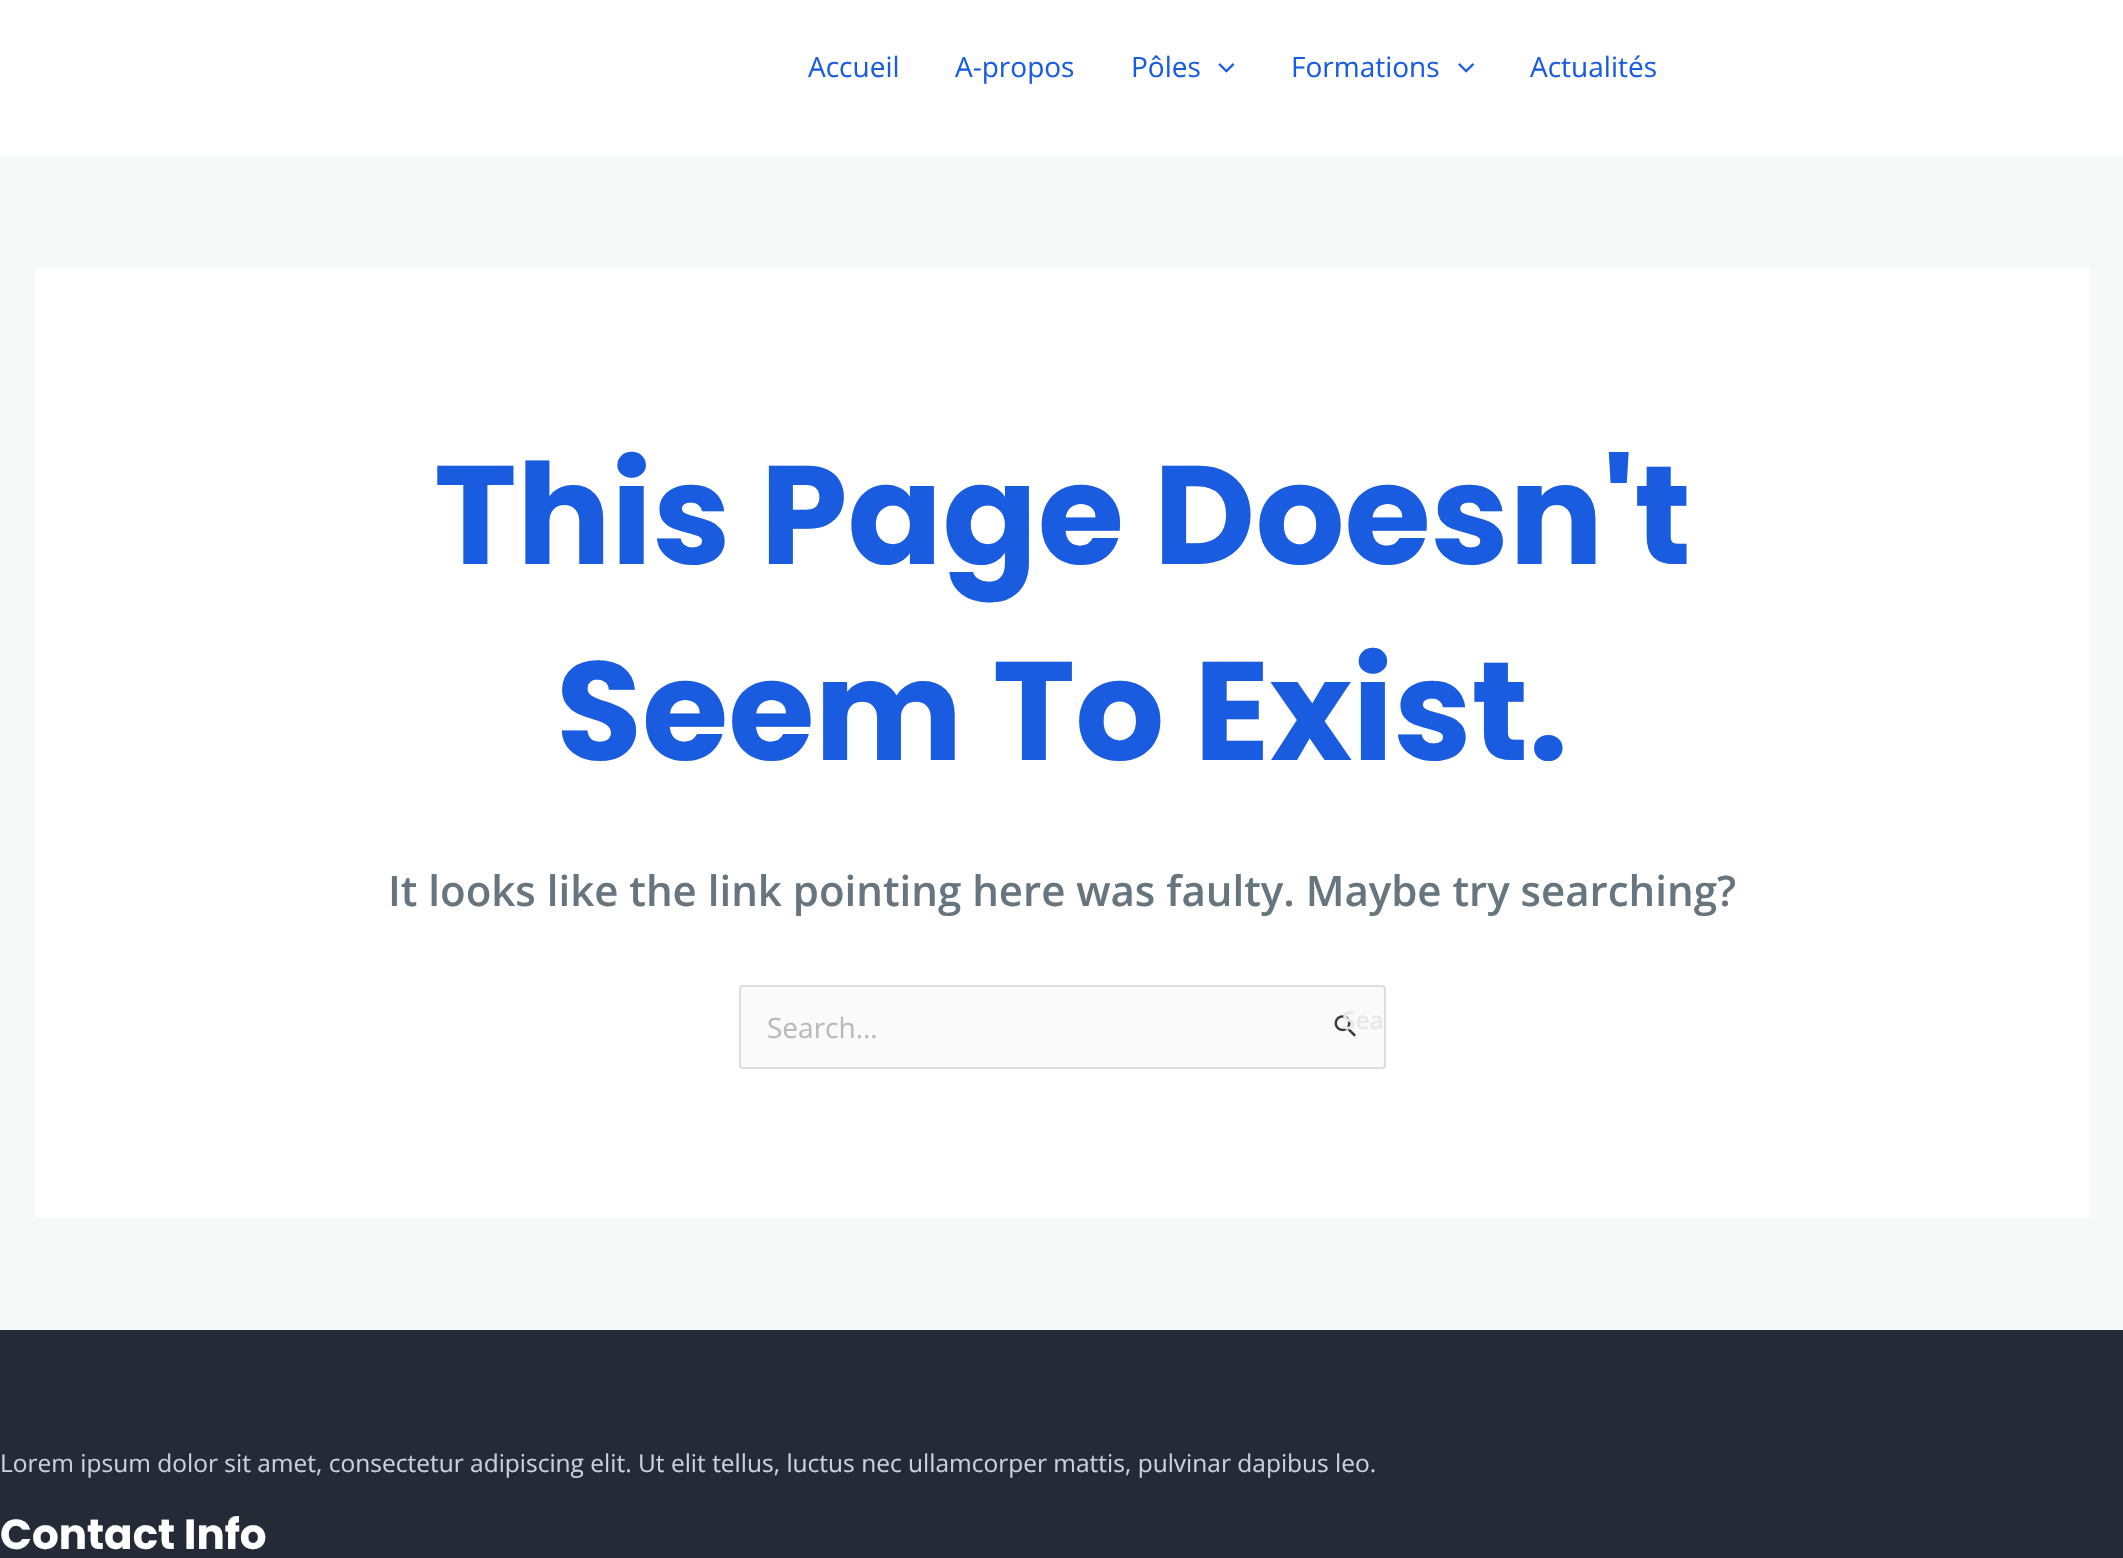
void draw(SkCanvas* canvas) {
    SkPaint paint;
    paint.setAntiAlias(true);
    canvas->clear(0xFFF7F8F8);
    paint.setColor(0xFFFFFFFF);
    canvas->drawRect(SkRect::MakeXYWH(0, 0, 2123, 156), paint);
    SkFont font1(fontMgr->matchFamilyStyle("Open Sans", SkFontStyle::Normal()), 28);
    font1.setSubpixel(true);
    paint.setColor(0xFF1A5CE0);
    canvas->drawString("Accueil", 808, 77, font1, paint);
    canvas->drawString("A-propos", 955, 77, font1, paint);
    canvas->drawString("Pôles", 1131, 77, font1, paint);
    canvas->drawImageRect(SkImages::DeferredFromEncodedData(SkData::MakeFromFileName("img1.png")), SkRect::MakeXYWH(1218, 63, 17, 10), SkSamplingOptions());
    canvas->drawString("Formations", 1291, 77, font1, paint);
    canvas->drawImageRect(SkImages::DeferredFromEncodedData(SkData::MakeFromFileName("img2.png")), SkRect::MakeXYWH(1458, 63, 16, 10), SkSamplingOptions());
    canvas->drawString("Actualités", 1530, 77, font1, paint);
    paint.setColor(0xFFFFFFFF);
    canvas->drawRect(SkRect::MakeXYWH(35, 268, 2055, 950), paint);
    SkFont font2(fontMgr->matchFamilyStyle("Poppins", SkFontStyle::Bold()), 140);
    font2.setSubpixel(true);
    paint.setColor(0xFF1A5CE0);
    canvas->drawString("This Page Doesn't", 434, 564, font2, paint);
    canvas->drawString("Seem To Exist.", 556, 760, font2, paint);
    SkFont font3(fontMgr->matchFamilyStyle("Open Sans", SkFontStyle(600, SkFontStyle::kNormal_Width, SkFontStyle::kUpright_Slant)), 42);
    font3.setSubpixel(true);
    paint.setColor(0xFF67757F);
    canvas->drawString("It looks like the link pointing here was faulty. Maybe try searching?", 388, 906, font3, paint);
    paint.setColor(0xFFFAFAFA);
    canvas->drawRoundRect(SkRect::MakeXYWH(740, 986, 645, 82), 3, 3, paint);
    paint.setStyle(SkPaint::kStroke_Style);
    paint.setStrokeWidth(2);
    paint.setColor(0xFFDDDDDD);
    canvas->drawRoundRect(SkRect::MakeXYWH(740, 986, 645, 82), 3, 3, paint);
    paint.setStyle(SkPaint::kFill_Style);
    paint.setColor(0xFFB8B8B8);
    canvas->drawString("Search...", 767, 1038, font1, paint);
    canvas->drawImageRect(SkImages::DeferredFromEncodedData(SkData::MakeFromFileName("img3.png")), SkRect::MakeXYWH(1334, 1015, 22, 22), SkSamplingOptions());
    SkFont font4(fontMgr->matchFamilyStyle("Open Sans", SkFontStyle(600, SkFontStyle::kNormal_Width, SkFontStyle::kUpright_Slant)), 24.5f);
    font4.setSubpixel(true);
    paint.setColor(0xFFE8E8E8);
    canvas->drawString("Sea", 1342, 1029, font4, paint);
    paint.setColor(0xFF242A36);
    canvas->drawRect(SkRect::MakeXYWH(0, 1330, 2123, 228), paint);
    SkFont font5(fontMgr->matchFamilyStyle("Open Sans", SkFontStyle::Normal()), 24.5f);
    font5.setSubpixel(true);
    paint.setColor(0xFFCAD0DB);
    canvas->drawString("Lorem ipsum dolor sit amet, consectetur adipiscing elit. Ut elit tellus, luctus nec ullamcorper mattis, pulvinar dapibus leo.", 0, 1472, font5, paint);
    SkFont font6(fontMgr->matchFamilyStyle("Poppins", SkFontStyle::Bold()), 42);
    font6.setSubpixel(true);
    paint.setColor(0xFFFFFFFF);
    canvas->drawString("Contact Info", 0, 1549, font6, paint);
}
